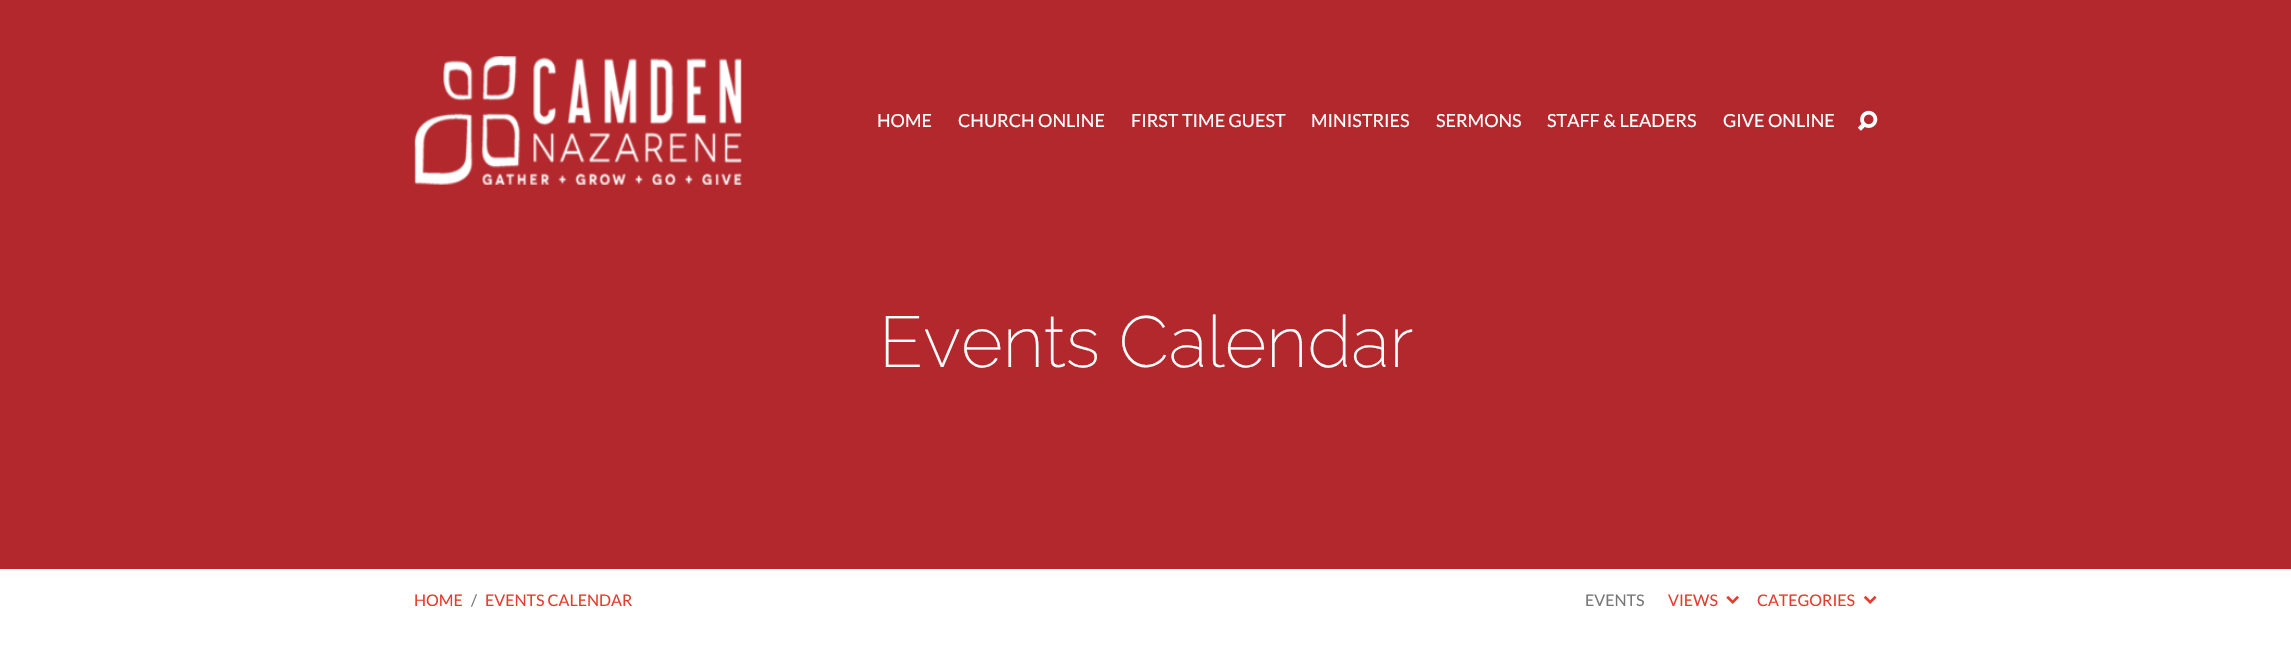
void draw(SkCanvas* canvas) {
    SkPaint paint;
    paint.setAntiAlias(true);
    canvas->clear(0xFFFFFFFF);
    paint.setColor(0xFFB3282D);
    canvas->drawRect(SkRect::MakeXYWH(0, 0, 2291, 569), paint);
    canvas->drawImageRect(SkImages::DeferredFromEncodedData(SkData::MakeFromFileName("img1.png")), SkRect::MakeXYWH(414, 56, 328, 129), SkSamplingOptions());
    SkFont font1(fontMgr->matchFamilyStyle("Lato", SkFontStyle::Normal()), 18);
    font1.setSubpixel(true);
    paint.setColor(0xFFFFFFFF);
    canvas->drawString("HOME", 877, 127, font1, paint);
    canvas->drawString("CHURCH ONLINE", 958, 127, font1, paint);
    canvas->drawString("FIRST TIME GUEST", 1131, 127, font1, paint);
    canvas->drawString("MINISTRIES", 1311, 127, font1, paint);
    canvas->drawString("SERMONS", 1436, 127, font1, paint);
    canvas->drawString("STAFF & LEADERS", 1547, 127, font1, paint);
    canvas->drawString("GIVE ONLINE", 1723, 127, font1, paint);
    canvas->drawImageRect(SkImages::DeferredFromEncodedData(SkData::MakeFromFileName("img2.png")), SkRect::MakeXYWH(1857, 110, 21, 21), SkSamplingOptions());
    SkFont font2(fontMgr->matchFamilyStyle("Raleway", SkFontStyle(200, SkFontStyle::kNormal_Width, SkFontStyle::kUpright_Slant)), 72);
    font2.setSubpixel(true);
    canvas->drawString("Events Calendar", 879, 367, font2, paint);
    SkFont font3(fontMgr->matchFamilyStyle("Lato", SkFontStyle::Normal()), 16);
    font3.setSubpixel(true);
    paint.setColor(0xFFE63C2F);
    canvas->drawString("HOME", 414, 606, font3, paint);
    paint.setColor(0xFF777777);
    canvas->drawString("/", 471, 606, font3, paint);
    paint.setColor(0xFFE63C2F);
    canvas->drawString("EVENTS CALENDAR", 485, 606, font3, paint);
    paint.setColor(0xFF777777);
    canvas->drawString("EVENTS", 1585, 606, font3, paint);
    paint.setColor(0xFFE63C2F);
    canvas->drawString("VIEWS", 1668, 606, font3, paint);
    canvas->drawImageRect(SkImages::DeferredFromEncodedData(SkData::MakeFromFileName("img3.png")), SkRect::MakeXYWH(1726, 595, 13, 9), SkSamplingOptions());
    canvas->drawString("CATEGORIES", 1757, 606, font3, paint);
    canvas->drawImageRect(SkImages::DeferredFromEncodedData(SkData::MakeFromFileName("img4.png")), SkRect::MakeXYWH(1863, 595, 14, 9), SkSamplingOptions());
}
